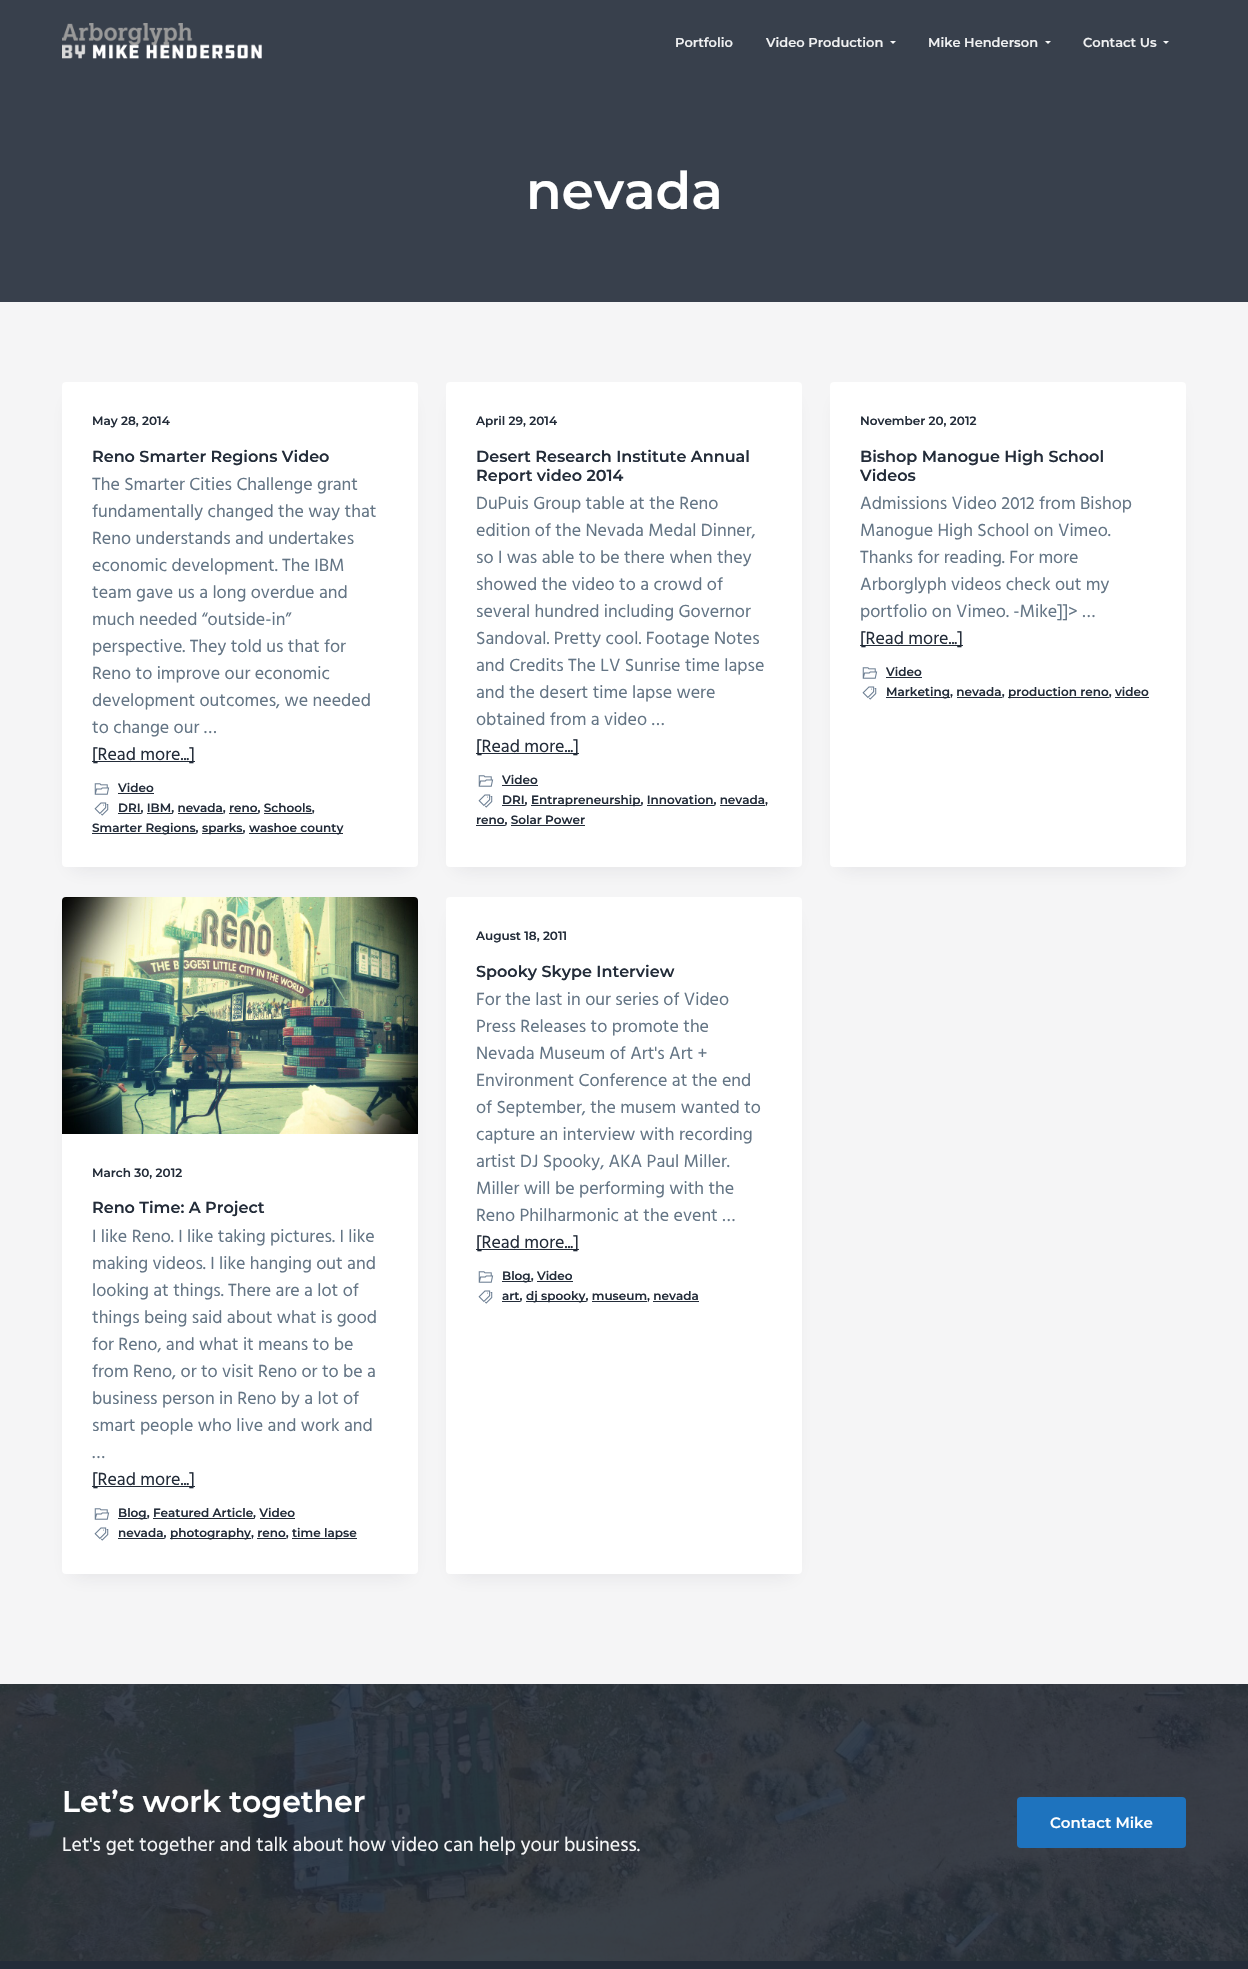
void draw(SkCanvas* canvas) {
    SkPaint paint;
    paint.setAntiAlias(true);
    canvas->clear(0xFFF5F5F6);
    paint.setColor(0xFF38404C);
    canvas->drawRect(SkRect::MakeXYWH(0, 0, 1248, 302), paint);
    canvas->drawImageRect(SkImages::DeferredFromEncodedData(SkData::MakeFromFileName("img1.png")), SkRect::MakeXYWH(62, 23, 200, 36), SkSamplingOptions());
    SkFont font1(fontMgr->matchFamilyStyle("Montserrat", SkFontStyle(100, SkFontStyle::kNormal_Width, SkFontStyle::kUpright_Slant)), 13);
    font1.setSubpixel(true);
    paint.setColor(0xFFF0F1F2);
    canvas->drawString("Portfolio", 675, 47, font1, paint);
    canvas->drawString("Video Production", 766, 47, font1, paint);
    paint.setColor(0xFFF6F7F8);
    canvas->drawPath(SkPathBuilder().moveTo(890, 41).lineTo(896, 41).lineTo(893, 44).close().detach(), paint);
    paint.setColor(0xFFF0F1F2);
    canvas->drawString("Mike Henderson", 928, 47, font1, paint);
    paint.setColor(0xFFF6F7F8);
    canvas->drawPath(SkPathBuilder().moveTo(1045, 41).lineTo(1051, 41).lineTo(1048, 44).close().detach(), paint);
    paint.setColor(0xFFF0F1F2);
    canvas->drawString("Contact Us", 1083, 47, font1, paint);
    paint.setColor(0xFFF6F7F8);
    canvas->drawPath(SkPathBuilder().moveTo(1163, 41).lineTo(1169, 41).lineTo(1166, 44).close().detach(), paint);
    SkFont font2(fontMgr->matchFamilyStyle("Montserrat", SkFontStyle(100, SkFontStyle::kNormal_Width, SkFontStyle::kUpright_Slant)), 52);
    font2.setSubpixel(true);
    paint.setColor(0xFFFFFFFF);
    canvas->drawString("nevada", 526, 209, font2, paint);
    paint.setColor(0x1A232C39);
    paint.setMaskFilter(SkMaskFilter::MakeBlur(kNormal_SkBlurStyle, 10));
    canvas->drawRect(SkRect::MakeXYWH(72, 402, 336, 465), paint);
    paint.setMaskFilter(nullptr);
    paint.setColor(0xFFFFFFFF);
    canvas->drawRoundRect(SkRect::MakeXYWH(62, 382, 356, 485), 4, 4, paint);
    SkFont font3(fontMgr->matchFamilyStyle("Montserrat", SkFontStyle(100, SkFontStyle::kNormal_Width, SkFontStyle::kUpright_Slant)), 12);
    font3.setSubpixel(true);
    paint.setColor(0xFF232C39);
    canvas->drawString("May 28, 2014", 92, 425, font3, paint);
    SkFont font4(fontMgr->matchFamilyStyle("Montserrat", SkFontStyle(100, SkFontStyle::kNormal_Width, SkFontStyle::kUpright_Slant)), 16);
    font4.setSubpixel(true);
    canvas->drawString("Reno Smarter Regions Video", 92, 462, font4, paint);
    SkFont font5(fontMgr->matchFamilyStyle("Hind", SkFontStyle::Normal()), 18);
    font5.setSubpixel(true);
    paint.setColor(0xFF647585);
    canvas->drawString("The Smarter Cities Challenge grant", 92, 490, font5, paint);
    canvas->drawString("fundamentally changed the way that", 92, 517, font5, paint);
    canvas->drawString("Reno understands and undertakes", 92, 544, font5, paint);
    canvas->drawString("economic development. The IBM", 92, 571, font5, paint);
    canvas->drawString("team gave us a long overdue and", 92, 598, font5, paint);
    canvas->drawString("much needed “outside-in”", 92, 625, font5, paint);
    canvas->drawString("perspective. They told us that for", 92, 652, font5, paint);
    canvas->drawString("Reno to improve our economic", 92, 679, font5, paint);
    canvas->drawString("development outcomes, we needed", 92, 706, font5, paint);
    canvas->drawString("to change our …", 92, 733, font5, paint);
    paint.setColor(0xFF232C39);
    canvas->drawRect(SkRect::MakeXYWH(92, 761, 103, 1), paint);
    canvas->drawString("[Read more...]", 92, 760, font5, paint);
    canvas->drawImageRect(SkImages::DeferredFromEncodedData(SkData::MakeFromFileName("img2.png")), SkRect::MakeXYWH(94, 783, 16, 12), SkSamplingOptions());
    canvas->drawString("Video", 118, 792, font3, paint);
    canvas->drawRect(SkRect::MakeXYWH(118, 793, 36, 1), paint);
    canvas->drawImageRect(SkImages::DeferredFromEncodedData(SkData::MakeFromFileName("img3.png")), SkRect::MakeXYWH(94, 802, 15, 14), SkSamplingOptions());
    canvas->drawRect(SkRect::MakeXYWH(118, 813, 23, 1), paint);
    canvas->drawString("DRI, IBM, nevada, reno, Schools,", 118, 812, font3, paint);
    canvas->drawRect(SkRect::MakeXYWH(147, 813, 25, 1), paint);
    canvas->drawRect(SkRect::MakeXYWH(178, 813, 45, 1), paint);
    canvas->drawRect(SkRect::MakeXYWH(229, 813, 29, 1), paint);
    canvas->drawRect(SkRect::MakeXYWH(264, 813, 48, 1), paint);
    canvas->drawRect(SkRect::MakeXYWH(92, 833, 104, 1), paint);
    canvas->drawString("Smarter Regions,", 92, 832, font3, paint);
    canvas->drawRect(SkRect::MakeXYWH(202, 833, 41, 1), paint);
    canvas->drawString("sparks,", 202, 832, font3, paint);
    canvas->drawRect(SkRect::MakeXYWH(249, 833, 94, 1), paint);
    canvas->drawString("washoe county", 249, 832, font3, paint);
    paint.setColor(0x1A232C39);
    paint.setMaskFilter(SkMaskFilter::MakeBlur(kNormal_SkBlurStyle, 10));
    canvas->drawRect(SkRect::MakeXYWH(456, 402, 336, 465), paint);
    paint.setMaskFilter(nullptr);
    paint.setColor(0xFFFFFFFF);
    canvas->drawRoundRect(SkRect::MakeXYWH(446, 382, 356, 485), 4, 4, paint);
    paint.setColor(0xFF232C39);
    canvas->drawString("April 29, 2014", 476, 425, font3, paint);
    canvas->drawString("Desert Research Institute Annual", 476, 462, font4, paint);
    canvas->drawString("Report video 2014", 476, 481, font4, paint);
    paint.setColor(0xFF647585);
    canvas->drawString("DuPuis Group table at the Reno", 476, 509, font5, paint);
    canvas->drawString("edition of the Nevada Medal Dinner,", 476, 536, font5, paint);
    canvas->drawString("so I was able to be there when they", 476, 563, font5, paint);
    canvas->drawString("showed the video to a crowd of", 476, 590, font5, paint);
    canvas->drawString("several hundred including Governor", 476, 617, font5, paint);
    canvas->drawString("Sandoval. Pretty cool. Footage Notes", 476, 644, font5, paint);
    canvas->drawString("and Credits The LV Sunrise time lapse", 476, 671, font5, paint);
    canvas->drawString("and the desert time lapse were", 476, 698, font5, paint);
    canvas->drawString("obtained from a video …", 476, 725, font5, paint);
    paint.setColor(0xFF232C39);
    canvas->drawRect(SkRect::MakeXYWH(476, 753, 103, 1), paint);
    canvas->drawString("[Read more...]", 476, 752, font5, paint);
    canvas->drawImageRect(SkImages::DeferredFromEncodedData(SkData::MakeFromFileName("img2.png")), SkRect::MakeXYWH(478, 775, 16, 12), SkSamplingOptions());
    canvas->drawString("Video", 502, 784, font3, paint);
    canvas->drawRect(SkRect::MakeXYWH(502, 785, 36, 1), paint);
    canvas->drawImageRect(SkImages::DeferredFromEncodedData(SkData::MakeFromFileName("img3.png")), SkRect::MakeXYWH(478, 794, 15, 14), SkSamplingOptions());
    canvas->drawRect(SkRect::MakeXYWH(502, 805, 23, 1), paint);
    canvas->drawString("DRI,", 502, 804, font3, paint);
    canvas->drawRect(SkRect::MakeXYWH(531, 805, 110, 1), paint);
    canvas->drawString("Entrapreneurship, Innovation, nevada,", 531, 804, font3, paint);
    canvas->drawRect(SkRect::MakeXYWH(647, 805, 67, 1), paint);
    canvas->drawRect(SkRect::MakeXYWH(720, 805, 45, 1), paint);
    canvas->drawRect(SkRect::MakeXYWH(476, 825, 29, 1), paint);
    canvas->drawString("reno, Solar Power", 476, 824, font3, paint);
    canvas->drawRect(SkRect::MakeXYWH(511, 825, 74, 1), paint);
    paint.setColor(0x1A232C39);
    paint.setMaskFilter(SkMaskFilter::MakeBlur(kNormal_SkBlurStyle, 10));
    canvas->drawRect(SkRect::MakeXYWH(840, 402, 336, 465), paint);
    paint.setMaskFilter(nullptr);
    paint.setColor(0xFFFFFFFF);
    canvas->drawRoundRect(SkRect::MakeXYWH(830, 382, 356, 485), 4, 4, paint);
    paint.setColor(0xFF232C39);
    canvas->drawString("November 20, 2012", 860, 425, font3, paint);
    canvas->drawString("Bishop Manogue High School", 860, 462, font4, paint);
    canvas->drawString("Videos", 860, 481, font4, paint);
    paint.setColor(0xFF647585);
    canvas->drawString("Admissions Video 2012 from Bishop", 860, 509, font5, paint);
    canvas->drawString("Manogue High School on Vimeo.", 860, 536, font5, paint);
    canvas->drawString("Thanks for reading. For more", 860, 563, font5, paint);
    canvas->drawString("Arborglyph videos check out my", 860, 590, font5, paint);
    canvas->drawString("portfolio on Vimeo. -Mike]]> …", 860, 617, font5, paint);
    paint.setColor(0xFF232C39);
    canvas->drawRect(SkRect::MakeXYWH(860, 645, 103, 1), paint);
    canvas->drawString("[Read more...]", 860, 644, font5, paint);
    canvas->drawImageRect(SkImages::DeferredFromEncodedData(SkData::MakeFromFileName("img2.png")), SkRect::MakeXYWH(862, 667, 16, 12), SkSamplingOptions());
    canvas->drawString("Video", 886, 676, font3, paint);
    canvas->drawRect(SkRect::MakeXYWH(886, 677, 36, 1), paint);
    canvas->drawImageRect(SkImages::DeferredFromEncodedData(SkData::MakeFromFileName("img3.png")), SkRect::MakeXYWH(862, 686, 15, 14), SkSamplingOptions());
    canvas->drawRect(SkRect::MakeXYWH(886, 697, 64, 1), paint);
    canvas->drawString("Marketing, nevada,", 886, 696, font3, paint);
    canvas->drawRect(SkRect::MakeXYWH(1008, 697, 101, 1), paint);
    canvas->drawString("production reno, video", 1008, 696, font3, paint);
    canvas->drawRect(SkRect::MakeXYWH(957, 697, 45, 1), paint);
    canvas->drawRect(SkRect::MakeXYWH(1115, 697, 34, 1), paint);
    paint.setColor(0x1A232C39);
    paint.setMaskFilter(SkMaskFilter::MakeBlur(kNormal_SkBlurStyle, 10));
    canvas->drawRect(SkRect::MakeXYWH(456, 917, 336, 657), paint);
    paint.setMaskFilter(nullptr);
    paint.setColor(0xFFFFFFFF);
    canvas->drawRoundRect(SkRect::MakeXYWH(446, 897, 356, 677), 4, 4, paint);
    paint.setColor(0xFF232C39);
    canvas->drawString("August 18, 2011", 476, 940, font3, paint);
    canvas->drawString("Spooky Skype Interview", 476, 977, font4, paint);
    paint.setColor(0xFF647585);
    canvas->drawString("For the last in our series of Video", 476, 1005, font5, paint);
    canvas->drawString("Press Releases to promote the", 476, 1032, font5, paint);
    canvas->drawString("Nevada Museum of Art's Art +", 476, 1059, font5, paint);
    canvas->drawString("Environment Conference at the end", 476, 1086, font5, paint);
    canvas->drawString("of September, the musem wanted to", 476, 1113, font5, paint);
    canvas->drawString("capture an interview with recording", 476, 1140, font5, paint);
    canvas->drawString("artist DJ Spooky, AKA Paul Miller.", 476, 1167, font5, paint);
    canvas->drawString("Miller will be performing with the", 476, 1194, font5, paint);
    canvas->drawString("Reno Philharmonic at the event …", 476, 1221, font5, paint);
    paint.setColor(0xFF232C39);
    canvas->drawRect(SkRect::MakeXYWH(476, 1249, 103, 1), paint);
    canvas->drawString("[Read more...]", 476, 1248, font5, paint);
    canvas->drawImageRect(SkImages::DeferredFromEncodedData(SkData::MakeFromFileName("img2.png")), SkRect::MakeXYWH(478, 1271, 16, 12), SkSamplingOptions());
    canvas->drawRect(SkRect::MakeXYWH(502, 1281, 29, 1), paint);
    canvas->drawString("Blog, Video", 502, 1280, font3, paint);
    canvas->drawRect(SkRect::MakeXYWH(537, 1281, 36, 1), paint);
    canvas->drawImageRect(SkImages::DeferredFromEncodedData(SkData::MakeFromFileName("img3.png")), SkRect::MakeXYWH(478, 1290, 15, 14), SkSamplingOptions());
    canvas->drawRect(SkRect::MakeXYWH(502, 1301, 18, 1), paint);
    canvas->drawString("art,", 502, 1300, font3, paint);
    canvas->drawRect(SkRect::MakeXYWH(526, 1301, 60, 1), paint);
    canvas->drawString("dj spooky, museum, nevada", 526, 1300, font3, paint);
    canvas->drawRect(SkRect::MakeXYWH(592, 1301, 55, 1), paint);
    canvas->drawRect(SkRect::MakeXYWH(653, 1301, 46, 1), paint);
    paint.setColor(0x1A232C39);
    paint.setMaskFilter(SkMaskFilter::MakeBlur(kNormal_SkBlurStyle, 10));
    canvas->drawRect(SkRect::MakeXYWH(72, 917, 336, 657), paint);
    paint.setMaskFilter(nullptr);
    paint.setColor(0xFFFFFFFF);
    canvas->drawRoundRect(SkRect::MakeXYWH(62, 897, 356, 677), 4, 4, paint);
    canvas->drawImageRect(SkImages::DeferredFromEncodedData(SkData::MakeFromFileName("img4.png")), SkRect::MakeXYWH(62, 897, 356, 237), SkSamplingOptions());
    paint.setColor(0xFF232C39);
    canvas->drawString("March 30, 2012", 92, 1177, font3, paint);
    canvas->drawString("Reno Time: A Project", 92, 1213, font4, paint);
    paint.setColor(0xFF647585);
    canvas->drawString("I like Reno. I like taking pictures. I like", 92, 1242, font5, paint);
    canvas->drawString("making videos. I like hanging out and", 92, 1269, font5, paint);
    canvas->drawString("looking at things. There are a lot of", 92, 1296, font5, paint);
    canvas->drawString("things being said about what is good", 92, 1323, font5, paint);
    canvas->drawString("for Reno, and what it means to be", 92, 1350, font5, paint);
    canvas->drawString("from Reno, or to visit Reno or to be a", 92, 1377, font5, paint);
    canvas->drawString("business person in Reno by a lot of", 92, 1404, font5, paint);
    canvas->drawString("smart people who live and work and", 92, 1431, font5, paint);
    canvas->drawString("…", 92, 1458, font5, paint);
    paint.setColor(0xFF232C39);
    canvas->drawRect(SkRect::MakeXYWH(92, 1486, 103, 1), paint);
    canvas->drawString("[Read more...]", 92, 1485, font5, paint);
    canvas->drawImageRect(SkImages::DeferredFromEncodedData(SkData::MakeFromFileName("img2.png")), SkRect::MakeXYWH(94, 1508, 16, 12), SkSamplingOptions());
    canvas->drawRect(SkRect::MakeXYWH(118, 1518, 29, 1), paint);
    canvas->drawString("Blog, Featured Article, Video", 118, 1517, font3, paint);
    canvas->drawRect(SkRect::MakeXYWH(153, 1518, 101, 1), paint);
    canvas->drawRect(SkRect::MakeXYWH(260, 1518, 35, 1), paint);
    canvas->drawImageRect(SkImages::DeferredFromEncodedData(SkData::MakeFromFileName("img3.png")), SkRect::MakeXYWH(94, 1527, 15, 14), SkSamplingOptions());
    canvas->drawRect(SkRect::MakeXYWH(118, 1538, 46, 1), paint);
    canvas->drawString("nevada,", 118, 1537, font3, paint);
    canvas->drawRect(SkRect::MakeXYWH(170, 1538, 81, 1), paint);
    canvas->drawString("photography, reno,", 170, 1537, font3, paint);
    canvas->drawRect(SkRect::MakeXYWH(292, 1538, 65, 1), paint);
    canvas->drawString("time lapse", 292, 1537, font3, paint);
    canvas->drawRect(SkRect::MakeXYWH(257, 1538, 29, 1), paint);
    canvas->drawRect(SkRect::MakeXYWH(0, 1961, 1248, 8), paint);
    canvas->drawImageRect(SkImages::DeferredFromEncodedData(SkData::MakeFromFileName("img5.png")), SkRect::MakeXYWH(0, 1684, 1248, 277), SkSamplingOptions());
    SkFont font6(fontMgr->matchFamilyStyle("Montserrat", SkFontStyle(100, SkFontStyle::kNormal_Width, SkFontStyle::kUpright_Slant)), 30);
    font6.setSubpixel(true);
    paint.setColor(0xFFFFFFFF);
    canvas->drawString("Let’s work together", 62, 1812, font6, paint);
    SkFont font7(fontMgr->matchFamilyStyle("Hind", SkFontStyle::Normal()), 20);
    font7.setSubpixel(true);
    paint.setColor(0xFFF6F7F8);
    canvas->drawString("Let's get together and talk about how video can help your business.", 62, 1851, font7, paint);
    paint.setColor(0xFF1E73BE);
    canvas->drawRoundRect(SkRect::MakeXYWH(1017, 1797, 169, 51), 4, 4, paint);
    SkFont font8(fontMgr->matchFamilyStyle("Montserrat", SkFontStyle(100, SkFontStyle::kNormal_Width, SkFontStyle::kUpright_Slant)), 15);
    font8.setSubpixel(true);
    paint.setColor(0xFFFFFFFF);
    canvas->drawString("Contact Mike", 1050, 1828, font8, paint);
}
